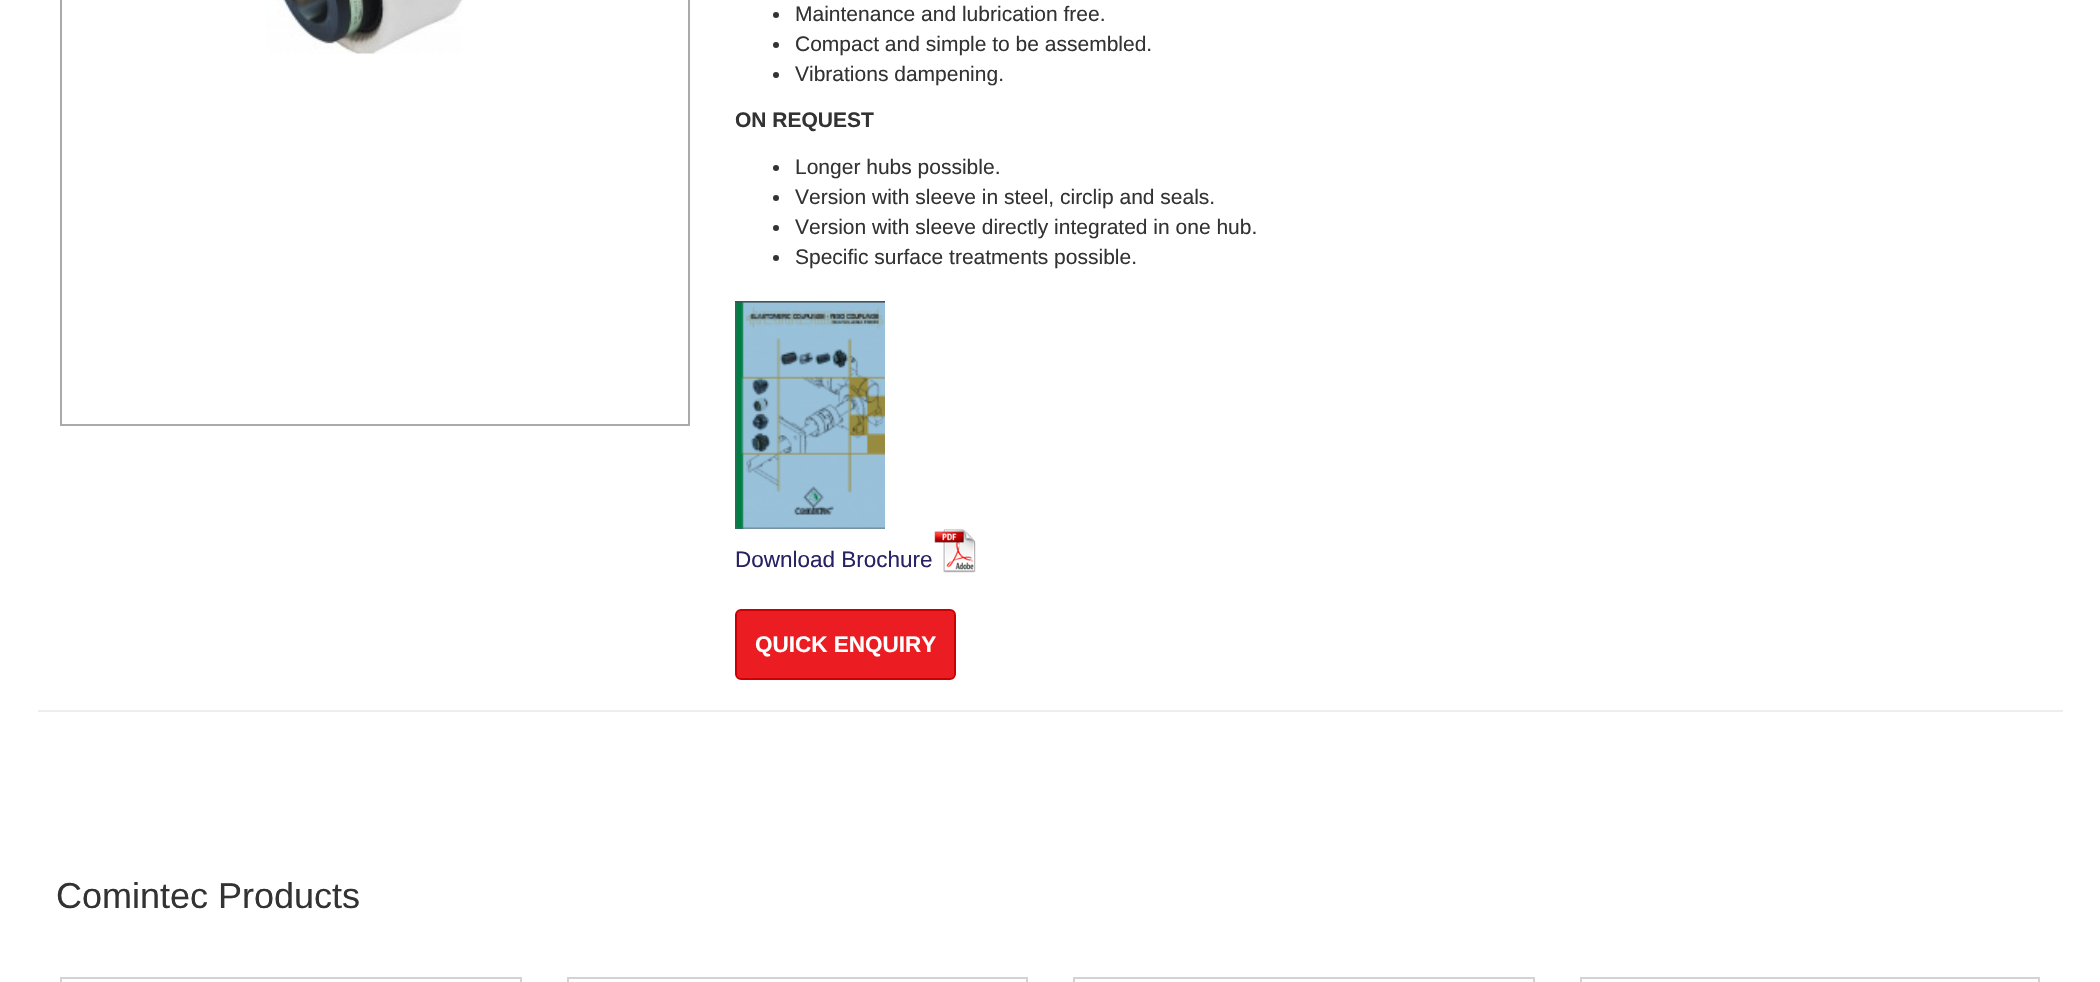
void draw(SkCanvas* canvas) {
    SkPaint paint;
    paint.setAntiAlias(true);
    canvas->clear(0xFFFFFFFF);
    paint.setStyle(SkPaint::kStroke_Style);
    paint.setStrokeWidth(2);
    paint.setColor(0xFFAAAAAA);
    canvas->drawRect(SkRect::MakeXYWH(61, -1, 628, 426), paint);
    canvas->drawImageRect(SkImages::DeferredFromEncodedData(SkData::MakeFromFileName("img1.png")), SkRect::MakeXYWH(266, 0, 197, 54), SkSamplingOptions());
    paint.setStyle(SkPaint::kFill_Style);
    paint.setColor(0xFF333333);
    canvas->drawCircle(776, 15, 3, paint);
    SkFont font1(fontMgr->matchFamilyStyle("Liberation Sans", SkFontStyle::Normal()), 21);
    font1.setSubpixel(true);
    canvas->drawString("Maintenance and lubrication free.", 795, 21, font1, paint);
    canvas->drawCircle(776, 45, 3, paint);
    canvas->drawString("Compact and simple to be assembled.", 795, 51, font1, paint);
    canvas->drawCircle(776, 75, 3, paint);
    canvas->drawString("Vibrations dampening.", 795, 81, font1, paint);
    SkFont font2(fontMgr->matchFamilyStyle("Liberation Sans", SkFontStyle::Bold()), 21);
    font2.setSubpixel(true);
    canvas->drawString("ON REQUEST", 735, 127, font2, paint);
    canvas->drawCircle(776, 168, 3, paint);
    canvas->drawString("Longer hubs possible.", 795, 174, font1, paint);
    canvas->drawCircle(776, 198, 3, paint);
    canvas->drawString("Version with sleeve in steel, circlip and seals.", 795, 204, font1, paint);
    canvas->drawCircle(776, 228, 3, paint);
    canvas->drawString("Version with sleeve directly integrated in one hub.", 795, 234, font1, paint);
    canvas->drawCircle(776, 258, 3, paint);
    canvas->drawString("Specific surface treatments possible.", 795, 264, font1, paint);
    canvas->drawImageRect(SkImages::DeferredFromEncodedData(SkData::MakeFromFileName("img2.png")), SkRect::MakeXYWH(735, 301, 150, 228), SkSamplingOptions());
    SkFont font3(fontMgr->matchFamilyStyle("Liberation Sans", SkFontStyle::Normal()), 22.5f);
    font3.setSubpixel(true);
    paint.setColor(0xFF272264);
    canvas->drawString("Download Brochure", 735, 567, font3, paint);
    canvas->drawImageRect(SkImages::DeferredFromEncodedData(SkData::MakeFromFileName("img3.png")), SkRect::MakeXYWH(934, 529, 42, 44), SkSamplingOptions());
    paint.setColor(0xFFEB1D22);
    canvas->drawRoundRect(SkRect::MakeXYWH(736, 610, 219, 69), 5, 5, paint);
    paint.setStyle(SkPaint::kStroke_Style);
    paint.setColor(0xFFCB0002);
    canvas->drawRoundRect(SkRect::MakeXYWH(736, 610, 219, 69), 5, 5, paint);
    SkFont font4(fontMgr->matchFamilyStyle("Liberation Sans", SkFontStyle::Bold()), 22.5f);
    font4.setSubpixel(true);
    paint.setStyle(SkPaint::kFill_Style);
    paint.setColor(0xFFFFFFFF);
    canvas->drawString("QUICK ENQUIRY", 755, 652, font4, paint);
    paint.setColor(0xFFEEEEEE);
    canvas->drawRect(SkRect::MakeXYWH(38, 710, 2025, 2), paint);
    SkFont font5(fontMgr->matchFamilyStyle("Liberation Sans", SkFontStyle::Normal()), 36);
    font5.setSubpixel(true);
    paint.setColor(0xFF333333);
    canvas->drawString("Comintec Products", 56, 908, font5, paint);
    paint.setStyle(SkPaint::kStroke_Style);
    paint.setColor(0xFFD3D3D3);
    canvas->drawRect(SkRect::MakeXYWH(61, 978, 460, 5), paint);
    canvas->drawRect(SkRect::MakeXYWH(568, 978, 459, 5), paint);
    canvas->drawRect(SkRect::MakeXYWH(1074, 978, 460, 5), paint);
    canvas->drawRect(SkRect::MakeXYWH(1581, 978, 458, 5), paint);
}
